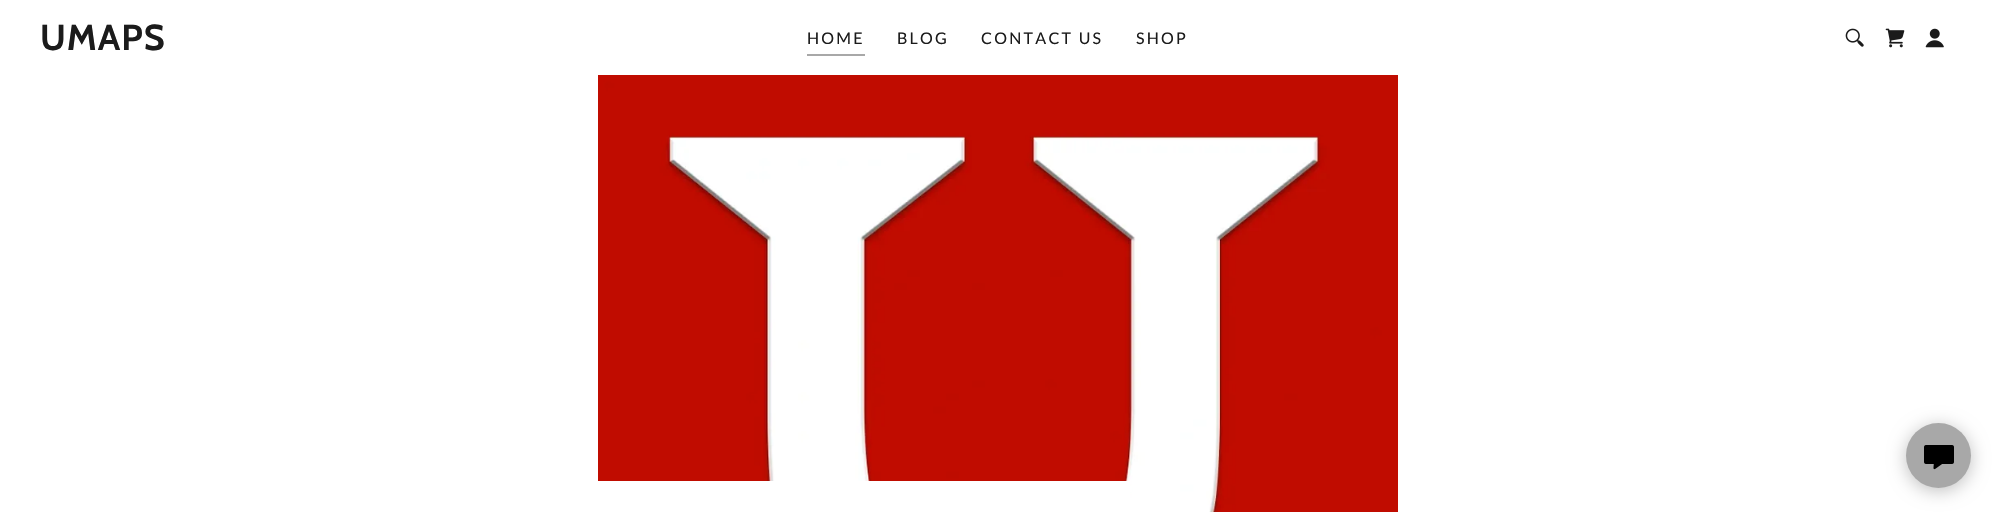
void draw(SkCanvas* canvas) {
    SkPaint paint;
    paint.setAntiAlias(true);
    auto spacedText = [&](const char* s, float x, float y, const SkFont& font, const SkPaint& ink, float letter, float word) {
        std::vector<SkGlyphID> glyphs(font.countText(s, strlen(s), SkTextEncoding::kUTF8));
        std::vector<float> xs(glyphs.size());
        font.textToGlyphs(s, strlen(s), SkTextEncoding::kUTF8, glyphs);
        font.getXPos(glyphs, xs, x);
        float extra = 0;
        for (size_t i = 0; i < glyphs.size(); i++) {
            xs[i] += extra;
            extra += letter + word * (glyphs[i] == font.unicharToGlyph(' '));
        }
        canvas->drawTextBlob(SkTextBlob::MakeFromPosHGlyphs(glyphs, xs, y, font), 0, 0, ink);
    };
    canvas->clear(0xFFFFFFFF);
    SkFont font1(fontMgr->matchFamilyStyle("Cabin", SkFontStyle::Bold()), 36);
    font1.setSubpixel(true);
    paint.setColor(0xFF1B1B1B);
    spacedText("UMAPS", 40, 50, font1, paint, 1, 0);
    paint.setColor(0xFFA8A8A8);
    canvas->drawRect(SkRect::MakeXYWH(807, 54, 58, 2), paint);
    SkFont font2(fontMgr->matchFamilyStyle("Lato", SkFontStyle::Normal()), 16);
    font2.setSubpixel(true);
    paint.setColor(0xFF1B1B1B);
    spacedText("HOME", 807, 44, font2, paint, 2.25f, 0);
    spacedText("BLOG", 897, 44, font2, paint, 2.25f, 0);
    spacedText("CONTACT US", 981, 44, font2, paint, 2.25f, 0);
    spacedText("SHOP", 1136, 44, font2, paint, 2.25f, 0);
    canvas->drawImageRect(SkImages::DeferredFromEncodedData(SkData::MakeFromFileName("img1.png")), SkRect::MakeXYWH(1845, 28, 19, 19), SkSamplingOptions());
    canvas->drawImageRect(SkImages::DeferredFromEncodedData(SkData::MakeFromFileName("img2.png")), SkRect::MakeXYWH(1885, 28, 20, 20), SkSamplingOptions());
    canvas->drawImageRect(SkImages::DeferredFromEncodedData(SkData::MakeFromFileName("img3.png")), SkRect::MakeXYWH(1925, 28, 19, 20), SkSamplingOptions());
    canvas->drawImageRect(SkImages::DeferredFromEncodedData(SkData::MakeFromFileName("img4.png")), SkRect::MakeXYWH(598, 75, 800, 437), SkSamplingOptions());
    paint.setColor(0xFFFFFFFF);
    canvas->drawRect(SkRect::MakeXYWH(598, 481, 532, 31), paint);
    canvas->drawRect(SkRect::MakeXYWH(1130, 486, 2, 6), paint);
    paint.setColor(0x40000000);
    paint.setMaskFilter(SkMaskFilter::MakeBlur(kNormal_SkBlurStyle, 9));
    canvas->drawRoundRect(SkRect::MakeXYWH(1906, 426, 65, 65), 32.5f, 32.5f, paint);
    paint.setMaskFilter(nullptr);
    paint.setColor(0xFFA8A8A8);
    canvas->drawCircle(1938.5f, 455.5f, 32.5f, paint);
    canvas->drawImageRect(SkImages::DeferredFromEncodedData(SkData::MakeFromFileName("img5.png")), SkRect::MakeXYWH(1924, 445, 30, 25), SkSamplingOptions());
}
